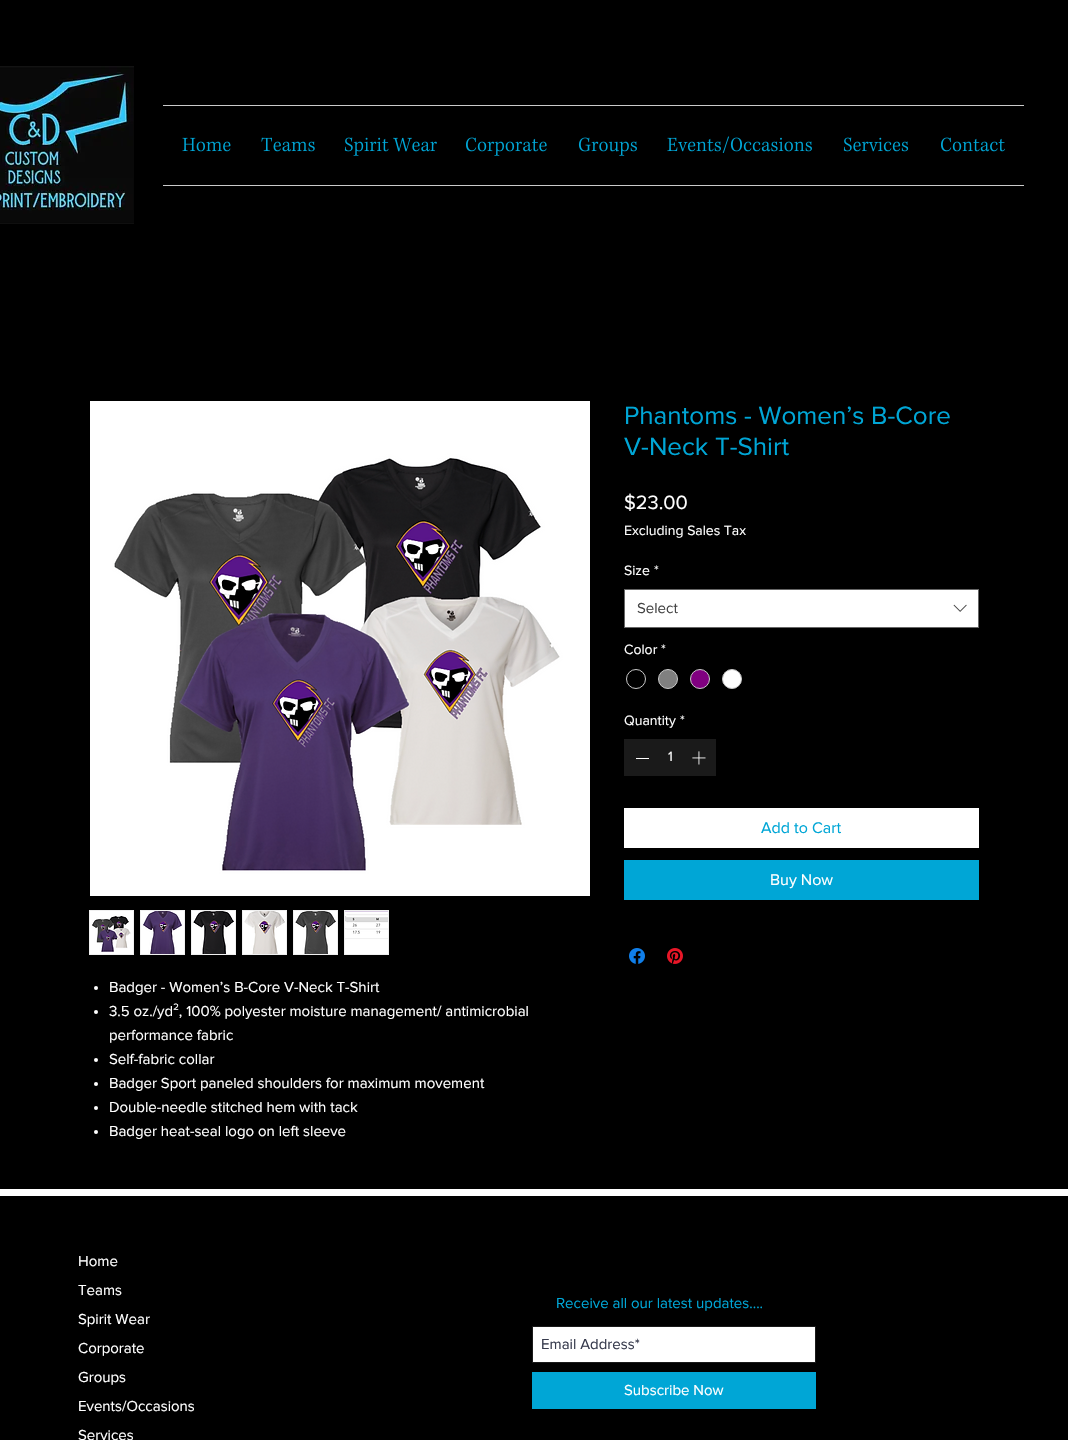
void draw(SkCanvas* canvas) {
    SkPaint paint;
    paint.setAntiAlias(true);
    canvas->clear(0xFF000000);
    canvas->drawImageRect(SkImages::DeferredFromEncodedData(SkData::MakeFromFileName("img1.png")), SkRect::MakeXYWH(0, 66, 134, 158), SkSamplingOptions());
    paint.setColor(0xFFCACACA);
    canvas->drawRect(SkRect::MakeXYWH(163, 105, 861, 1), paint);
    canvas->drawRect(SkRect::MakeXYWH(163, 185, 861, 1), paint);
    canvas->drawImageRect(SkImages::DeferredFromEncodedData(SkData::MakeFromFileName("img2.png")), SkRect::MakeXYWH(182, 137, 49, 15), SkSamplingOptions());
    canvas->drawImageRect(SkImages::DeferredFromEncodedData(SkData::MakeFromFileName("img3.png")), SkRect::MakeXYWH(261, 137, 54, 15), SkSamplingOptions());
    canvas->drawImageRect(SkImages::DeferredFromEncodedData(SkData::MakeFromFileName("img4.png")), SkRect::MakeXYWH(344, 137, 93, 19), SkSamplingOptions());
    canvas->drawImageRect(SkImages::DeferredFromEncodedData(SkData::MakeFromFileName("img5.png")), SkRect::MakeXYWH(466, 137, 81, 19), SkSamplingOptions());
    canvas->drawImageRect(SkImages::DeferredFromEncodedData(SkData::MakeFromFileName("img6.png")), SkRect::MakeXYWH(578, 137, 59, 19), SkSamplingOptions());
    canvas->drawImageRect(SkImages::DeferredFromEncodedData(SkData::MakeFromFileName("img7.png")), SkRect::MakeXYWH(667, 136, 145, 17), SkSamplingOptions());
    canvas->drawImageRect(SkImages::DeferredFromEncodedData(SkData::MakeFromFileName("img8.png")), SkRect::MakeXYWH(843, 137, 66, 15), SkSamplingOptions());
    canvas->drawImageRect(SkImages::DeferredFromEncodedData(SkData::MakeFromFileName("img9.png")), SkRect::MakeXYWH(941, 137, 64, 15), SkSamplingOptions());
    SkFont font1(fontMgr->matchFamilyStyle("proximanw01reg", SkFontStyle::Normal()), 26);
    font1.setSubpixel(true);
    paint.setColor(0xFF00A6D6);
    canvas->drawString("Phantoms - Women’s B-Core", 624, 424, font1, paint);
    canvas->drawString("V-Neck T-Shirt", 624, 455, font1, paint);
    SkFont font2(fontMgr->matchFamilyStyle("proximanw01reg", SkFontStyle::Normal()), 20);
    font2.setSubpixel(true);
    paint.setColor(0xFFFFFFFF);
    canvas->drawString("$23.00", 624, 509, font2, paint);
    SkFont font3(fontMgr->matchFamilyStyle("proximanw01reg", SkFontStyle::Normal()), 14);
    font3.setSubpixel(true);
    canvas->drawString("Excluding Sales Tax", 624, 535, font3, paint);
    canvas->drawString("Size", 624, 575, font3, paint);
    canvas->drawString("*", 654, 575, font3, paint);
    canvas->drawRect(SkRect::MakeXYWH(624.5f, 589.5f, 354, 38), paint);
    paint.setStyle(SkPaint::kStroke_Style);
    paint.setStrokeWidth(1);
    paint.setColor(0xFF666666);
    canvas->drawRect(SkRect::MakeXYWH(624.5f, 589.5f, 354, 38), paint);
    SkFont font4(fontMgr->matchFamilyStyle("proximanw01reg", SkFontStyle::Normal()), 15);
    font4.setSubpixel(true);
    paint.setStyle(SkPaint::kFill_Style);
    paint.setColor(0xFF444444);
    canvas->drawString("Select", 637, 613, font4, paint);
    canvas->drawImageRect(SkImages::DeferredFromEncodedData(SkData::MakeFromFileName("img10.png")), SkRect::MakeXYWH(953, 604, 14, 8), SkSamplingOptions());
    paint.setColor(0xFFFFFFFF);
    canvas->drawString("Color", 624, 654, font3, paint);
    canvas->drawString("*", 661, 654, font3, paint);
    paint.setStyle(SkPaint::kStroke_Style);
    paint.setColor(0xFFC9C9C9);
    canvas->drawCircle(636, 679, 9.5f, paint);
    paint.setStyle(SkPaint::kFill_Style);
    paint.setColor(0xFF808080);
    canvas->drawCircle(668, 679, 9.5f, paint);
    paint.setStyle(SkPaint::kStroke_Style);
    paint.setColor(0xFFC9C9C9);
    canvas->drawCircle(668, 679, 9.5f, paint);
    paint.setStyle(SkPaint::kFill_Style);
    paint.setColor(0xFF800080);
    canvas->drawCircle(700, 679, 9.5f, paint);
    paint.setStyle(SkPaint::kStroke_Style);
    paint.setColor(0xFFC9C9C9);
    canvas->drawCircle(700, 679, 9.5f, paint);
    paint.setStyle(SkPaint::kFill_Style);
    paint.setColor(0xFFFFFFFF);
    canvas->drawCircle(732, 679, 9.5f, paint);
    paint.setStyle(SkPaint::kStroke_Style);
    paint.setColor(0xFFC9C9C9);
    canvas->drawCircle(732, 679, 9.5f, paint);
    paint.setStyle(SkPaint::kFill_Style);
    paint.setColor(0xFFFFFFFF);
    canvas->drawString("Quantity", 624, 725, font3, paint);
    canvas->drawString("*", 680, 725, font3, paint);
    paint.setColor(0xFF1A1A1A);
    canvas->drawRect(SkRect::MakeXYWH(624, 739, 92, 37), paint);
    paint.setColor(0xFFFFFFFF);
    canvas->drawRect(SkRect::MakeXYWH(636, 758, 13, 1), paint);
    canvas->drawString("1", 668, 761, font3, paint);
    canvas->drawImageRect(SkImages::DeferredFromEncodedData(SkData::MakeFromFileName("img11.png")), SkRect::MakeXYWH(692, 751, 14, 14), SkSamplingOptions());
    canvas->drawRect(SkRect::MakeXYWH(624, 808, 355, 40), paint);
    SkFont font5(fontMgr->matchFamilyStyle("proximanw01reg", SkFontStyle::Normal()), 16);
    font5.setSubpixel(true);
    paint.setColor(0xFF00A6D6);
    canvas->drawString("Add to Cart", 761, 833, font5, paint);
    canvas->drawRect(SkRect::MakeXYWH(624, 860, 355, 40), paint);
    paint.setColor(0xFFFFFFFF);
    canvas->drawString("Buy Now", 770, 885, font5, paint);
    canvas->drawImageRect(SkImages::DeferredFromEncodedData(SkData::MakeFromFileName("img12.png")), SkRect::MakeXYWH(629, 948, 16, 16), SkSamplingOptions());
    canvas->drawImageRect(SkImages::DeferredFromEncodedData(SkData::MakeFromFileName("img13.png")), SkRect::MakeXYWH(667, 948, 16, 16), SkSamplingOptions());
    canvas->drawImageRect(SkImages::DeferredFromEncodedData(SkData::MakeFromFileName("img14.png")), SkRect::MakeXYWH(90, 401, 500, 495), SkSamplingOptions());
    paint.setColor(0xFFF0F0F0);
    canvas->drawRect(SkRect::MakeXYWH(89, 910, 45, 45), paint);
    canvas->drawImageRect(SkImages::DeferredFromEncodedData(SkData::MakeFromFileName("img15.png")), SkRect::MakeXYWH(90, 911, 43, 43), SkSamplingOptions());
    canvas->drawRect(SkRect::MakeXYWH(140, 910, 45, 45), paint);
    canvas->drawImageRect(SkImages::DeferredFromEncodedData(SkData::MakeFromFileName("img16.png")), SkRect::MakeXYWH(141, 911, 43, 43), SkSamplingOptions());
    canvas->drawRect(SkRect::MakeXYWH(191, 910, 45, 45), paint);
    canvas->drawImageRect(SkImages::DeferredFromEncodedData(SkData::MakeFromFileName("img17.png")), SkRect::MakeXYWH(192, 911, 43, 43), SkSamplingOptions());
    canvas->drawRect(SkRect::MakeXYWH(242, 910, 45, 45), paint);
    canvas->drawImageRect(SkImages::DeferredFromEncodedData(SkData::MakeFromFileName("img18.png")), SkRect::MakeXYWH(243, 911, 43, 43), SkSamplingOptions());
    canvas->drawRect(SkRect::MakeXYWH(293, 910, 45, 45), paint);
    canvas->drawImageRect(SkImages::DeferredFromEncodedData(SkData::MakeFromFileName("img19.png")), SkRect::MakeXYWH(294, 911, 43, 43), SkSamplingOptions());
    canvas->drawRect(SkRect::MakeXYWH(344, 910, 45, 45), paint);
    canvas->drawImageRect(SkImages::DeferredFromEncodedData(SkData::MakeFromFileName("img20.png")), SkRect::MakeXYWH(345, 911, 43, 43), SkSamplingOptions());
    paint.setColor(0xFFFFFFFF);
    canvas->drawCircle(96, 988, 2, paint);
    canvas->drawString("Badger - Women’s B-Core V-Neck T-Shirt", 109, 992, font4, paint);
    canvas->drawCircle(96, 1012, 2, paint);
    canvas->drawString("3.5 oz./yd², 100% polyester moisture management/ antimicrobial", 109, 1016, font4, paint);
    canvas->drawString("performance fabric", 109, 1040, font4, paint);
    canvas->drawCircle(96, 1060, 2, paint);
    canvas->drawString("Self-fabric collar", 109, 1064, font4, paint);
    canvas->drawCircle(96, 1084, 2, paint);
    canvas->drawString("Badger Sport paneled shoulders for maximum movement", 109, 1088, font4, paint);
    canvas->drawCircle(96, 1108, 2, paint);
    canvas->drawString("Double-needle stitched hem with tack", 109, 1112, font4, paint);
    canvas->drawCircle(96, 1132, 2, paint);
    canvas->drawString("Badger heat-seal logo on left sleeve", 109, 1136, font4, paint);
    canvas->drawRect(SkRect::MakeXYWH(0, 1189, 1068, 7), paint);
    canvas->drawString("Home", 78, 1266, font4, paint);
    canvas->drawString("Teams", 78, 1295, font4, paint);
    canvas->drawString("Spirit Wear", 78, 1324, font4, paint);
    canvas->drawString("Corporate", 78, 1353, font4, paint);
    canvas->drawString("Groups", 78, 1382, font4, paint);
    canvas->drawString("Events/Occasions", 78, 1411, font4, paint);
    canvas->drawString("Services", 78, 1440, font4, paint);
    paint.setColor(0xFF00A6D6);
    canvas->drawString("Receive all our latest updates....", 556, 1308, font4, paint);
    paint.setColor(0xFFFFFFFF);
    canvas->drawRect(SkRect::MakeXYWH(532.5f, 1326.5f, 283, 36), paint);
    paint.setStyle(SkPaint::kStroke_Style);
    paint.setColor(0xFF1A1A1A);
    canvas->drawRect(SkRect::MakeXYWH(532.5f, 1326.5f, 283, 36), paint);
    paint.setStyle(SkPaint::kFill_Style);
    paint.setColor(0xFF373B4D);
    canvas->drawString("Email Address*", 541, 1349, font4, paint);
    paint.setColor(0xFF00A6D6);
    canvas->drawRect(SkRect::MakeXYWH(532, 1372, 284, 37), paint);
    paint.setColor(0xFFFFFFFF);
    canvas->drawString("Subscribe Now", 624, 1395, font4, paint);
}
